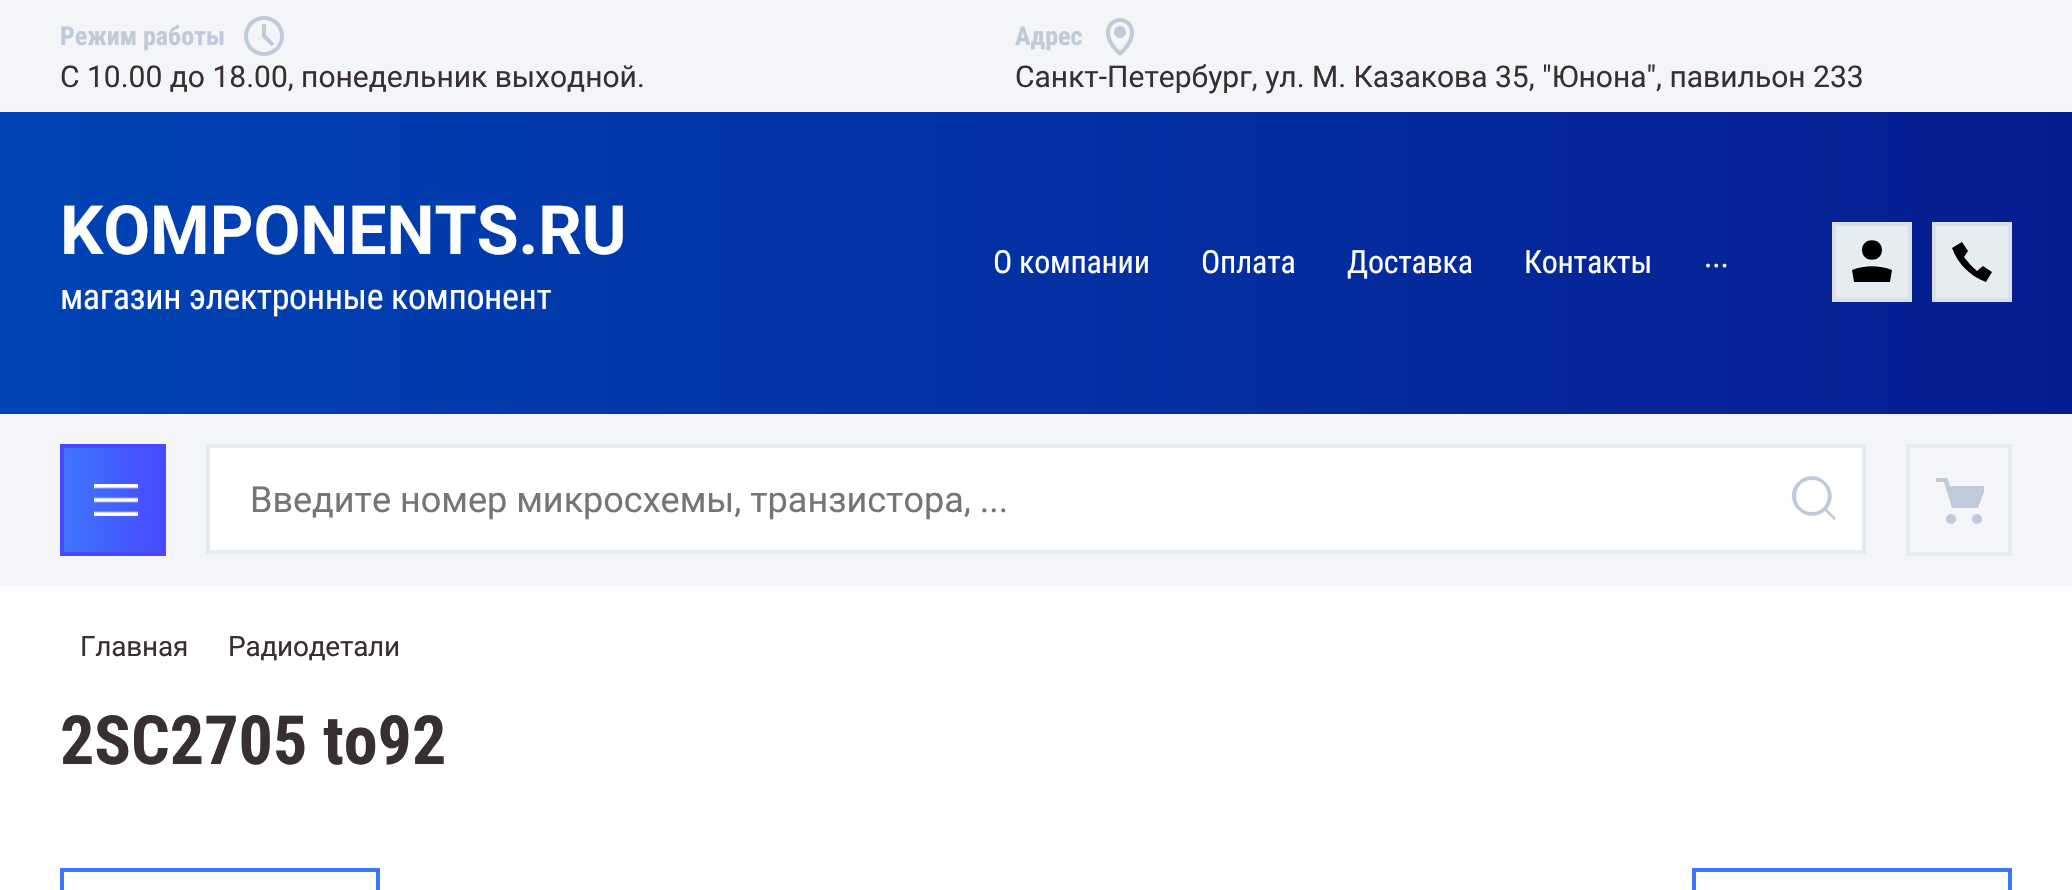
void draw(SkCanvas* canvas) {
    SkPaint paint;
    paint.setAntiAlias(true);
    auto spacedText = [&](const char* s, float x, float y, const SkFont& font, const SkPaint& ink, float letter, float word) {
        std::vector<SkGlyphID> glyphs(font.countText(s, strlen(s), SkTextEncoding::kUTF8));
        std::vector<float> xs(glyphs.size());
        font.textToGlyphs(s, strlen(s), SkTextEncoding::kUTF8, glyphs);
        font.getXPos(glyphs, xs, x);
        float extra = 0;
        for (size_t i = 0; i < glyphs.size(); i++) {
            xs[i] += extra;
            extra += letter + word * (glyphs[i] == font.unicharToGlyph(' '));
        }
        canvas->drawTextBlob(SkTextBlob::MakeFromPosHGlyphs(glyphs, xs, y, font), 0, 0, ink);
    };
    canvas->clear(0xFFFFFFFF);
    paint.setColor(0xFFF3F5F8);
    canvas->drawRect(SkRect::MakeXYWH(0, 0, 2072, 586), paint);
    SkFont font1(fontMgr->matchFamilyStyle("Roboto Condensed", SkFontStyle::Bold()), 26);
    font1.setSubpixel(true);
    paint.setColor(0xFFBFCADA);
    canvas->drawString("Режим работы", 60, 45, font1, paint);
    canvas->drawImageRect(SkImages::DeferredFromEncodedData(SkData::MakeFromFileName("img1.png")), SkRect::MakeXYWH(244, 16, 40, 40), SkSamplingOptions());
    SkFont font2(fontMgr->matchFamilyStyle("Roboto", SkFontStyle::Normal()), 30);
    font2.setSubpixel(true);
    paint.setColor(0xFF383030);
    canvas->drawString("C 10.00 до 18.00, понедельник выходной.", 60, 87, font2, paint);
    paint.setColor(0xFFBFCADA);
    canvas->drawString("Адрес", 1015, 45, font1, paint);
    canvas->drawImageRect(SkImages::DeferredFromEncodedData(SkData::MakeFromFileName("img2.png")), SkRect::MakeXYWH(1106, 18, 28, 38), SkSamplingOptions());
    paint.setColor(0xFF383030);
    canvas->drawString("Санкт-Петербург, ул. М. Казакова 35, \"Юнона\", павильон 233", 1015, 87, font2, paint);
    {
        const SkColor colors[] = {0xFF0044B5, 0xFF061D91};
        const float stops[] = {0, 1};
        const SkPoint ends[] = {{0, 263}, {2072, 263}};
        paint.setShader(SkGradientShader::MakeLinear(ends, colors, stops, 2, SkTileMode::kClamp));
        paint.setAlpha(255);
    }
    canvas->drawRect(SkRect::MakeXYWH(0, 112, 2072, 302), paint);
    SkFont font3(fontMgr->matchFamilyStyle("Roboto", SkFontStyle::Bold()), 68);
    font3.setSubpixel(true);
    paint.setShader(nullptr);
    paint.setColor(0xFFFFFFFF);
    canvas->drawString("KOMPONENTS.RU", 60, 254, font3, paint);
    SkFont font4(fontMgr->matchFamilyStyle("Roboto Condensed", SkFontStyle::Normal()), 36);
    font4.setSubpixel(true);
    spacedText("магазин электронные компонент", 60, 309, font4, paint, -0.4f, 0);
    SkFont font5(fontMgr->matchFamilyStyle("Roboto Condensed", SkFontStyle::Normal()), 32);
    font5.setSubpixel(true);
    spacedText("О компании", 993, 273, font5, paint, -0.25f, 0);
    spacedText("Оплата", 1201, 273, font5, paint, -0.25f, 0);
    spacedText("Доставка", 1347, 273, font5, paint, -0.25f, 0);
    spacedText("Контакты", 1524, 273, font5, paint, -0.25f, 0);
    spacedText("...", 1704, 267, font5, paint, -0.25f, 0);
    paint.setColor(0xFFE6EDF1);
    canvas->drawRect(SkRect::MakeXYWH(1834, 224, 76, 76), paint);
    paint.setStyle(SkPaint::kStroke_Style);
    paint.setStrokeWidth(4);
    paint.setColor(0xFFD9E0E9);
    canvas->drawRect(SkRect::MakeXYWH(1834, 224, 76, 76), paint);
    paint.setStyle(SkPaint::kFill_Style);
    paint.setColor(0xFF000000);
    canvas->drawPath(SkPathBuilder(SkPathFillType::kEvenOdd).moveTo(1882, 250).cubicTo(1882, 237, 1862, 237, 1862, 250).cubicTo(1862, 263, 1882, 263, 1882, 250).close().moveTo(1852, 270).lineTo(1854, 282).lineTo(1890, 282).lineTo(1892, 270).cubicTo(1879, 265, 1865, 265, 1852, 270).close().detach(), paint);
    paint.setColor(0xFFE6EDF1);
    canvas->drawRect(SkRect::MakeXYWH(1936, 226, 72, 72), paint);
    paint.setColor(0xFF000000);
    canvas->drawPath(SkPathBuilder(SkPathFillType::kEvenOdd).moveTo(1952, 248).lineTo(1962, 242).lineTo(1968, 251).lineTo(1964, 257).cubicTo(1968, 262, 1972, 267, 1977, 271).lineTo(1983, 266).lineTo(1992, 272).lineTo(1986, 282).cubicTo(1970, 276, 1958, 264, 1952, 248).close().detach(), paint);
    paint.setStyle(SkPaint::kStroke_Style);
    paint.setColor(0xFFD9E0E9);
    canvas->drawRect(SkRect::MakeXYWH(1934, 224, 76, 76), paint);
    paint.setStyle(SkPaint::kFill_Style);
    {
        const SkColor colors[] = {0xFF3E75FF, 0xFF484AFF};
        const float stops[] = {0, 1};
        const SkPoint ends[] = {{64, 500}, {162, 500}};
        paint.setShader(SkGradientShader::MakeLinear(ends, colors, stops, 2, SkTileMode::kClamp));
        paint.setAlpha(255);
    }
    canvas->drawRect(SkRect::MakeXYWH(64, 448, 98, 104), paint);
    paint.setStyle(SkPaint::kStroke_Style);
    paint.setShader(nullptr);
    paint.setColor(0xFF484AFF);
    canvas->drawRect(SkRect::MakeXYWH(62, 446, 102, 108), paint);
    canvas->drawImageRect(SkImages::DeferredFromEncodedData(SkData::MakeFromFileName("img3.png")), SkRect::MakeXYWH(94, 484, 44, 32), SkSamplingOptions());
    paint.setStyle(SkPaint::kFill_Style);
    paint.setColor(0xFFFFFFFF);
    canvas->drawRect(SkRect::MakeXYWH(208, 446, 1656, 106), paint);
    paint.setStyle(SkPaint::kStroke_Style);
    paint.setColor(0xFFE6EAF1);
    canvas->drawRect(SkRect::MakeXYWH(208, 446, 1656, 106), paint);
    SkFont font6(fontMgr->matchFamilyStyle("Roboto", SkFontStyle::Normal()), 36);
    font6.setSubpixel(true);
    paint.setStyle(SkPaint::kFill_Style);
    paint.setColor(0xFF757575);
    canvas->drawString("Введите номер микросхемы, транзистора, ...", 250, 512, font6, paint);
    paint.setColor(0xFFBFCADA);
    canvas->drawPath(SkPathBuilder(SkPathFillType::kEvenOdd).moveTo(1827, 509).lineTo(1836, 518).lineTo(1834, 520).lineTo(1825, 511).cubicTo(1806, 527, 1780, 500, 1798, 482).cubicTo(1816, 464, 1843, 490, 1827, 509).close().moveTo(1812, 512).cubicTo(1833, 512, 1833, 480, 1812, 480).cubicTo(1791, 480, 1791, 512, 1812, 512).close().detach(), paint);
    canvas->drawImageRect(SkImages::DeferredFromEncodedData(SkData::MakeFromFileName("img4.png")), SkRect::MakeXYWH(1936, 478, 48, 46), SkSamplingOptions());
    paint.setStyle(SkPaint::kStroke_Style);
    paint.setColor(0xFFE6EAF1);
    canvas->drawRect(SkRect::MakeXYWH(1908, 446, 102, 108), paint);
    SkFont font7(fontMgr->matchFamilyStyle("Roboto", SkFontStyle::Normal()), 28);
    font7.setSubpixel(true);
    paint.setStyle(SkPaint::kFill_Style);
    paint.setColor(0xFF383030);
    spacedText("Главная", 80, 656, font7, paint, -0.25f, 0);
    spacedText("Радиодетали", 228, 656, font7, paint, -0.25f, 0);
    SkFont font8(fontMgr->matchFamilyStyle("Roboto Condensed", SkFontStyle::Bold()), 68);
    font8.setSubpixel(true);
    canvas->drawString("2SC2705 to92", 60, 764, font8, paint);
    paint.setStyle(SkPaint::kStroke_Style);
    paint.setColor(0xFF3E75FF);
    canvas->drawRect(SkRect::MakeXYWH(62, 870, 316, 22), paint);
    canvas->drawRect(SkRect::MakeXYWH(1694, 870, 316, 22), paint);
}
